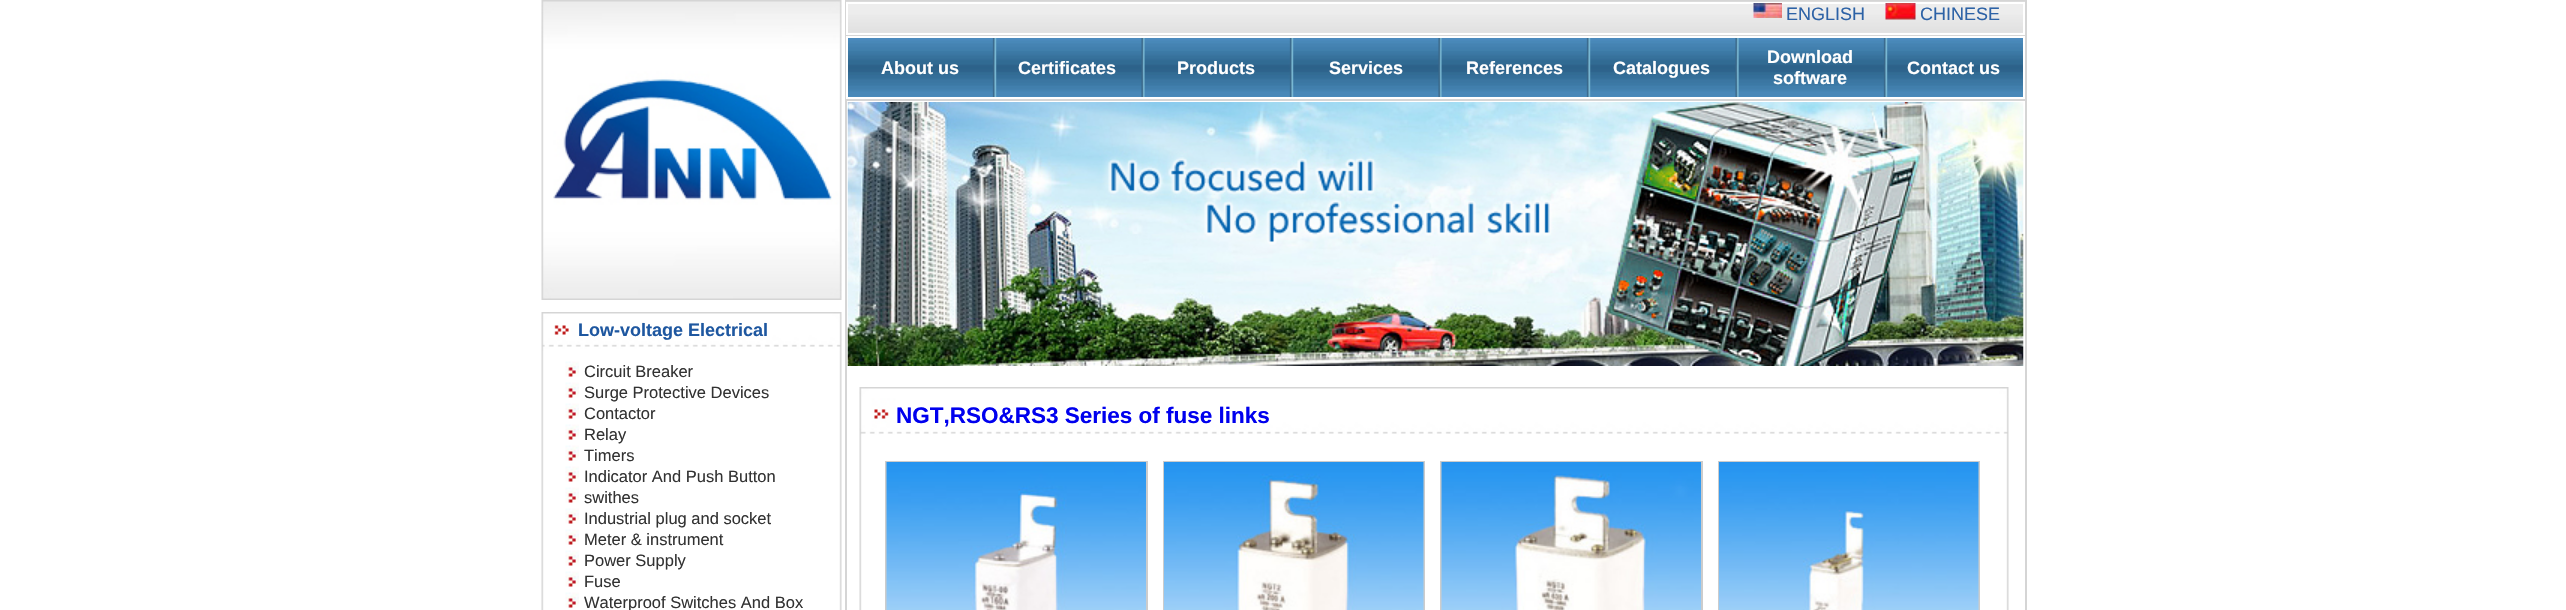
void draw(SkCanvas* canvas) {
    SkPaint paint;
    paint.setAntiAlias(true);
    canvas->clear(0xFFFFFFFF);
    paint.setStyle(SkPaint::kStroke_Style);
    paint.setStrokeWidth(2);
    paint.setColor(0xFFD5D5D5);
    canvas->drawRect(SkRect::MakeXYWH(846, 1, 1180, 34), paint);
    canvas->drawImageRect(SkImages::DeferredFromEncodedData(SkData::MakeFromFileName("img1.png")), SkRect::MakeXYWH(846, 1, 1179, 32), SkSamplingOptions());
    paint.setColor(0xFFFFFFFF);
    canvas->drawRect(SkRect::MakeXYWH(847, 3, 1177, 31), paint);
    canvas->drawImageRect(SkImages::DeferredFromEncodedData(SkData::MakeFromFileName("img2.png")), SkRect::MakeXYWH(1753, 3, 29, 15), SkSamplingOptions());
    SkFont font1(fontMgr->matchFamilyStyle("Liberation Sans", SkFontStyle::Normal()), 18);
    font1.setSubpixel(true);
    paint.setStyle(SkPaint::kFill_Style);
    paint.setColor(0xFF2D62A6);
    canvas->drawString("ENGLISH", 1786, 20, font1, paint);
    canvas->drawImageRect(SkImages::DeferredFromEncodedData(SkData::MakeFromFileName("img3.png")), SkRect::MakeXYWH(1885, 3, 31, 17), SkSamplingOptions());
    canvas->drawString("CHINESE", 1920, 20, font1, paint);
    paint.setColor(0xFFD5D5D5);
    canvas->drawRect(SkRect::MakeXYWH(2025, 36, 2, 574), paint);
    canvas->drawRect(SkRect::MakeXYWH(845, 99, 1182, 2), paint);
    canvas->drawRect(SkRect::MakeXYWH(845, 36, 2, 574), paint);
    canvas->drawImageRect(SkImages::DeferredFromEncodedData(SkData::MakeFromFileName("img4.png")), SkRect::MakeXYWH(848, 38, 1175, 59), SkSamplingOptions());
    paint.setStyle(SkPaint::kStroke_Style);
    paint.setColor(0xFFFFFFFF);
    canvas->drawRect(SkRect::MakeXYWH(847, 37, 1177, 61), paint);
    SkFont font2(fontMgr->matchFamilyStyle("Liberation Sans", SkFontStyle::Bold()), 18);
    font2.setSubpixel(true);
    paint.setStyle(SkPaint::kFill_Style);
    canvas->drawString("About us", 881, 74, font2, paint);
    canvas->drawString("Certificates", 1018, 74, font2, paint);
    canvas->drawString("Products", 1177, 74, font2, paint);
    canvas->drawString("Services", 1329, 74, font2, paint);
    canvas->drawString("References", 1466, 74, font2, paint);
    canvas->drawString("Catalogues", 1613, 74, font2, paint);
    canvas->drawString("Download", 1767, 63, font2, paint);
    canvas->drawString("software", 1773, 84, font2, paint);
    canvas->drawString("Contact us", 1907, 74, font2, paint);
    canvas->drawImageRect(SkImages::DeferredFromEncodedData(SkData::MakeFromFileName("img5.png")), SkRect::MakeXYWH(847, 102, 1177, 264), SkSamplingOptions());
    canvas->drawImageRect(SkImages::DeferredFromEncodedData(SkData::MakeFromFileName("img6.png")), SkRect::MakeXYWH(859, 387, 1150, 48), SkSamplingOptions());
    SkFont font3(fontMgr->matchFamilyStyle("Liberation Sans", SkFontStyle::Bold()), 22.5f);
    font3.setSubpixel(true);
    paint.setColor(0xFF0000EE);
    canvas->drawString("NGT,RSO&RS3 Series of fuse links", 896, 423, font3, paint);
    canvas->drawImageRect(SkImages::DeferredFromEncodedData(SkData::MakeFromFileName("img7.png")), SkRect::MakeXYWH(859, 435, 1150, 175), SkSamplingOptions());
    paint.setStyle(SkPaint::kStroke_Style);
    paint.setColor(0xFFCCCCCC);
    canvas->drawRect(SkRect::MakeXYWH(886, 462, 261, 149), paint);
    canvas->drawImageRect(SkImages::DeferredFromEncodedData(SkData::MakeFromFileName("img8.png")), SkRect::MakeXYWH(886, 462, 260, 148), SkSamplingOptions());
    canvas->drawRect(SkRect::MakeXYWH(1164, 462, 260, 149), paint);
    canvas->drawImageRect(SkImages::DeferredFromEncodedData(SkData::MakeFromFileName("img9.png")), SkRect::MakeXYWH(1164, 462, 260, 148), SkSamplingOptions());
    canvas->drawRect(SkRect::MakeXYWH(1441, 462, 261, 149), paint);
    canvas->drawImageRect(SkImages::DeferredFromEncodedData(SkData::MakeFromFileName("img10.png")), SkRect::MakeXYWH(1441, 462, 260, 148), SkSamplingOptions());
    canvas->drawRect(SkRect::MakeXYWH(1719, 462, 260, 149), paint);
    canvas->drawImageRect(SkImages::DeferredFromEncodedData(SkData::MakeFromFileName("img11.png")), SkRect::MakeXYWH(1719, 462, 260, 148), SkSamplingOptions());
    canvas->drawImageRect(SkImages::DeferredFromEncodedData(SkData::MakeFromFileName("img12.png")), SkRect::MakeXYWH(541, 0, 301, 300), SkSamplingOptions());
    canvas->drawImageRect(SkImages::DeferredFromEncodedData(SkData::MakeFromFileName("img13.png")), SkRect::MakeXYWH(541, 312, 301, 39), SkSamplingOptions());
    paint.setStyle(SkPaint::kFill_Style);
    paint.setColor(0xFF1E57A0);
    canvas->drawString("Low-voltage Electrical", 578, 336, font2, paint);
    canvas->drawImageRect(SkImages::DeferredFromEncodedData(SkData::MakeFromFileName("img14.png")), SkRect::MakeXYWH(541, 351, 301, 259), SkSamplingOptions());
    canvas->drawImageRect(SkImages::DeferredFromEncodedData(SkData::MakeFromFileName("img15.png")), SkRect::MakeXYWH(565, 361, 14, 16), SkSamplingOptions());
    SkFont font4(fontMgr->matchFamilyStyle("Liberation Sans", SkFontStyle::Normal()), 16.5f);
    font4.setSubpixel(true);
    paint.setColor(0xFF333333);
    canvas->drawString("Circuit Breaker", 584, 377, font4, paint);
    canvas->drawImageRect(SkImages::DeferredFromEncodedData(SkData::MakeFromFileName("img15.png")), SkRect::MakeXYWH(565, 382, 14, 16), SkSamplingOptions());
    canvas->drawString("Surge Protective Devices", 584, 398, font4, paint);
    canvas->drawImageRect(SkImages::DeferredFromEncodedData(SkData::MakeFromFileName("img15.png")), SkRect::MakeXYWH(565, 403, 14, 16), SkSamplingOptions());
    canvas->drawString("Contactor", 584, 419, font4, paint);
    canvas->drawImageRect(SkImages::DeferredFromEncodedData(SkData::MakeFromFileName("img15.png")), SkRect::MakeXYWH(565, 424, 14, 16), SkSamplingOptions());
    canvas->drawString("Relay", 584, 440, font4, paint);
    canvas->drawImageRect(SkImages::DeferredFromEncodedData(SkData::MakeFromFileName("img15.png")), SkRect::MakeXYWH(565, 445, 14, 16), SkSamplingOptions());
    canvas->drawString("Timers", 584, 461, font4, paint);
    canvas->drawImageRect(SkImages::DeferredFromEncodedData(SkData::MakeFromFileName("img15.png")), SkRect::MakeXYWH(565, 466, 14, 16), SkSamplingOptions());
    canvas->drawString("Indicator And Push Button", 584, 482, font4, paint);
    canvas->drawImageRect(SkImages::DeferredFromEncodedData(SkData::MakeFromFileName("img15.png")), SkRect::MakeXYWH(565, 487, 14, 16), SkSamplingOptions());
    canvas->drawString("swithes", 584, 503, font4, paint);
    canvas->drawImageRect(SkImages::DeferredFromEncodedData(SkData::MakeFromFileName("img15.png")), SkRect::MakeXYWH(565, 508, 14, 16), SkSamplingOptions());
    canvas->drawString("Industrial plug and socket", 584, 524, font4, paint);
    canvas->drawImageRect(SkImages::DeferredFromEncodedData(SkData::MakeFromFileName("img15.png")), SkRect::MakeXYWH(565, 529, 14, 16), SkSamplingOptions());
    canvas->drawString("Meter & instrument", 584, 545, font4, paint);
    canvas->drawImageRect(SkImages::DeferredFromEncodedData(SkData::MakeFromFileName("img15.png")), SkRect::MakeXYWH(565, 550, 14, 16), SkSamplingOptions());
    canvas->drawString("Power Supply", 584, 566, font4, paint);
    canvas->drawImageRect(SkImages::DeferredFromEncodedData(SkData::MakeFromFileName("img15.png")), SkRect::MakeXYWH(565, 571, 14, 16), SkSamplingOptions());
    canvas->drawString("Fuse", 584, 587, font4, paint);
    canvas->drawImageRect(SkImages::DeferredFromEncodedData(SkData::MakeFromFileName("img15.png")), SkRect::MakeXYWH(565, 592, 14, 16), SkSamplingOptions());
    canvas->drawString("Waterproof Switches And Box", 584, 608, font4, paint);
}
